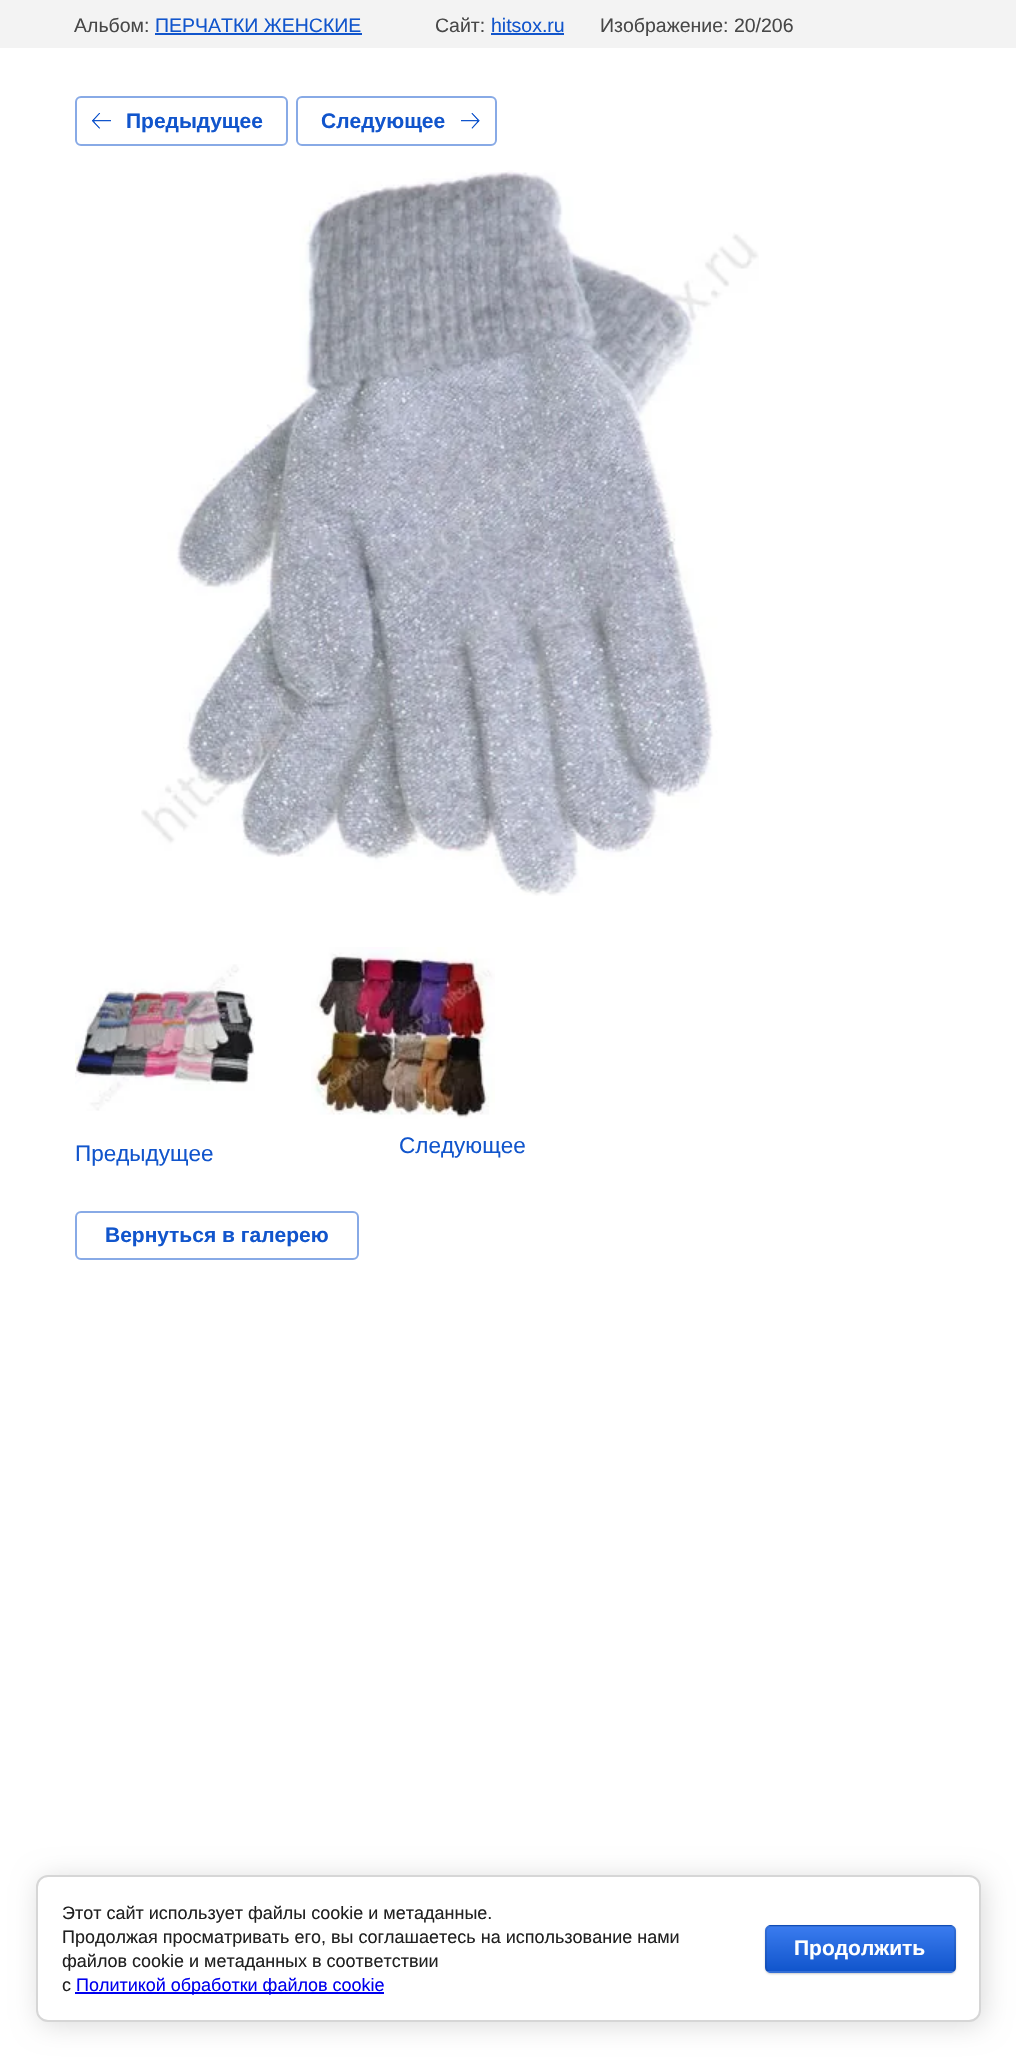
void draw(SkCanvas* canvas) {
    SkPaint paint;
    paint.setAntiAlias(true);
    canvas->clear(0xFFFFFFFF);
    paint.setColor(0xFFF3F3F3);
    canvas->drawRect(SkRect::MakeXYWH(0, 0, 1016, 48), paint);
    SkFont font1(fontMgr->matchFamilyStyle("Liberation Sans", SkFontStyle::Normal()), 19.5f);
    font1.setSubpixel(true);
    paint.setColor(0xFF484848);
    canvas->drawString("Альбом:", 74, 32, font1, paint);
    paint.setColor(0xFF1155CC);
    canvas->drawString("ПЕРЧАТКИ ЖЕНСКИЕ", 155, 32, font1, paint);
    canvas->drawRect(SkRect::MakeXYWH(155, 33, 207, 2), paint);
    paint.setColor(0xFF484848);
    canvas->drawString("Сайт:", 435, 32, font1, paint);
    paint.setColor(0xFF1155CC);
    canvas->drawString("hitsox.ru", 491, 32, font1, paint);
    canvas->drawRect(SkRect::MakeXYWH(491, 33, 73, 2), paint);
    paint.setColor(0xFF484848);
    canvas->drawString("Изображение: 20/206", 600, 32, font1, paint);
    paint.setStyle(SkPaint::kStroke_Style);
    paint.setStrokeWidth(2);
    paint.setColor(0xFF88AAE6);
    canvas->drawRoundRect(SkRect::MakeXYWH(76, 97, 211, 48), 5, 5, paint);
    canvas->drawImageRect(SkImages::DeferredFromEncodedData(SkData::MakeFromFileName("img1.png")), SkRect::MakeXYWH(92, 113, 19, 16), SkSamplingOptions());
    SkFont font2(fontMgr->matchFamilyStyle("Liberation Sans", SkFontStyle::Bold()), 21);
    font2.setSubpixel(true);
    paint.setStyle(SkPaint::kFill_Style);
    paint.setColor(0xFF1155CC);
    canvas->drawString("Предыдущее", 126, 128, font2, paint);
    paint.setStyle(SkPaint::kStroke_Style);
    paint.setColor(0xFF88AAE6);
    canvas->drawRoundRect(SkRect::MakeXYWH(297, 97, 199, 48), 5, 5, paint);
    paint.setStyle(SkPaint::kFill_Style);
    paint.setColor(0xFF1155CC);
    canvas->drawString("Следующее", 321, 128, font2, paint);
    canvas->drawImageRect(SkImages::DeferredFromEncodedData(SkData::MakeFromFileName("img2.png")), SkRect::MakeXYWH(461, 113, 19, 16), SkSamplingOptions());
    canvas->drawImageRect(SkImages::DeferredFromEncodedData(SkData::MakeFromFileName("img3.png")), SkRect::MakeXYWH(141, 170, 618, 726), SkSamplingOptions());
    canvas->drawImageRect(SkImages::DeferredFromEncodedData(SkData::MakeFromFileName("img4.png")), SkRect::MakeXYWH(75, 964, 180, 147), SkSamplingOptions());
    SkFont font3(fontMgr->matchFamilyStyle("Liberation Sans", SkFontStyle::Normal()), 22.5f);
    font3.setSubpixel(true);
    canvas->drawString("Предыдущее", 75, 1161, font3, paint);
    canvas->drawImageRect(SkImages::DeferredFromEncodedData(SkData::MakeFromFileName("img5.png")), SkRect::MakeXYWH(311, 947, 184, 172), SkSamplingOptions());
    canvas->drawString("Следующее", 399, 1153, font3, paint);
    paint.setStyle(SkPaint::kStroke_Style);
    paint.setColor(0xFF88AAE6);
    canvas->drawRoundRect(SkRect::MakeXYWH(76, 1212, 282, 47), 5, 5, paint);
    paint.setStyle(SkPaint::kFill_Style);
    paint.setColor(0xFF1155CC);
    canvas->drawString("Вернуться в галерею", 105, 1242, font2, paint);
    paint.setColor(0x24000000);
    paint.setMaskFilter(SkMaskFilter::MakeBlur(kNormal_SkBlurStyle, 13.5f));
    canvas->drawRoundRect(SkRect::MakeXYWH(39, 1878, 945, 147), 12, 12, paint);
    paint.setMaskFilter(nullptr);
    paint.setColor(0xFFFFFFFF);
    canvas->drawRoundRect(SkRect::MakeXYWH(37, 1876, 943, 145), 11, 11, paint);
    paint.setStyle(SkPaint::kStroke_Style);
    paint.setColor(0xFFD6D6D6);
    canvas->drawRoundRect(SkRect::MakeXYWH(37, 1876, 943, 145), 11, 11, paint);
    SkFont font4(fontMgr->matchFamilyStyle("Liberation Sans", SkFontStyle::Normal()), 18);
    font4.setSubpixel(true);
    paint.setStyle(SkPaint::kFill_Style);
    paint.setColor(0xFF212121);
    canvas->drawString("Этот сайт использует файлы cookie и метаданные.", 62, 1919, font4, paint);
    canvas->drawString("Продолжая просматривать его, вы соглашаетесь на использование нами", 62, 1943, font4, paint);
    canvas->drawString("файлов cookie и метаданных в соответствии", 62, 1967, font4, paint);
    canvas->drawString("с", 62, 1991, font4, paint);
    paint.setColor(0xFF0000EE);
    canvas->drawRect(SkRect::MakeXYWH(75, 1992, 309, 2), paint);
    canvas->drawString("Политикой обработки файлов cookie", 76, 1991, font4, paint);
    paint.setColor(0x33000000);
    paint.setMaskFilter(SkMaskFilter::MakeBlur(kNormal_SkBlurStyle, 1));
    canvas->drawRoundRect(SkRect::MakeXYWH(765, 1926, 191, 48), 6, 6, paint);
    paint.setMaskFilter(nullptr);
    canvas->save();
    canvas->clipPath(SkPathBuilder().moveTo(771, 1925).lineTo(950, 1925).cubicTo(953.5f, 1925, 956, 1927.5f, 956, 1931).lineTo(956, 1967).cubicTo(956, 1970.5f, 953.5f, 1973, 950, 1973).lineTo(771, 1973).cubicTo(767.5f, 1973, 765, 1970.5f, 765, 1967).lineTo(765, 1931).cubicTo(765, 1927.5f, 767.5f, 1925, 771, 1925).close().detach(), true);
    {
        const SkColor colors[] = {0xFF3B7CEF, 0xFF1155CC};
        const float stops[] = {0, 1};
        const SkPoint ends[] = {{860, 1881}, {860, 1926}};
        paint.setShader(SkGradientShader::MakeLinear(ends, colors, stops, 2, SkTileMode::kClamp));
        paint.setAlpha(255);
    }
    canvas->drawRect(SkRect::MakeXYWH(765, 1925, 191, 1), paint);
    {
        const SkColor colors[] = {0xFF3B7CEF, 0xFF1155CC};
        const float stops[] = {0, 1};
        const SkPoint ends[] = {{860, 1926}, {860, 1971}};
        paint.setShader(SkGradientShader::MakeLinear(ends, colors, stops, 2, SkTileMode::kClamp));
        paint.setAlpha(255);
    }
    canvas->drawRect(SkRect::MakeXYWH(765, 1926, 191, 45), paint);
    {
        const SkColor colors[] = {0xFF3B7CEF, 0xFF1155CC};
        const float stops[] = {0, 1};
        const SkPoint ends[] = {{860, 1971}, {860, 2016}};
        paint.setShader(SkGradientShader::MakeLinear(ends, colors, stops, 2, SkTileMode::kClamp));
        paint.setAlpha(255);
    }
    canvas->drawRect(SkRect::MakeXYWH(765, 1971, 191, 2), paint);
    canvas->restore();
    paint.setStyle(SkPaint::kStroke_Style);
    paint.setShader(nullptr);
    paint.setColor(0x1A000000);
    canvas->drawRoundRect(SkRect::MakeXYWH(766, 1926, 189, 46), 5, 5, paint);
    paint.setStyle(SkPaint::kFill_Style);
    paint.setColor(0xFFFFFFFF);
    canvas->drawString("Продолжить", 794, 1955, font2, paint);
}
